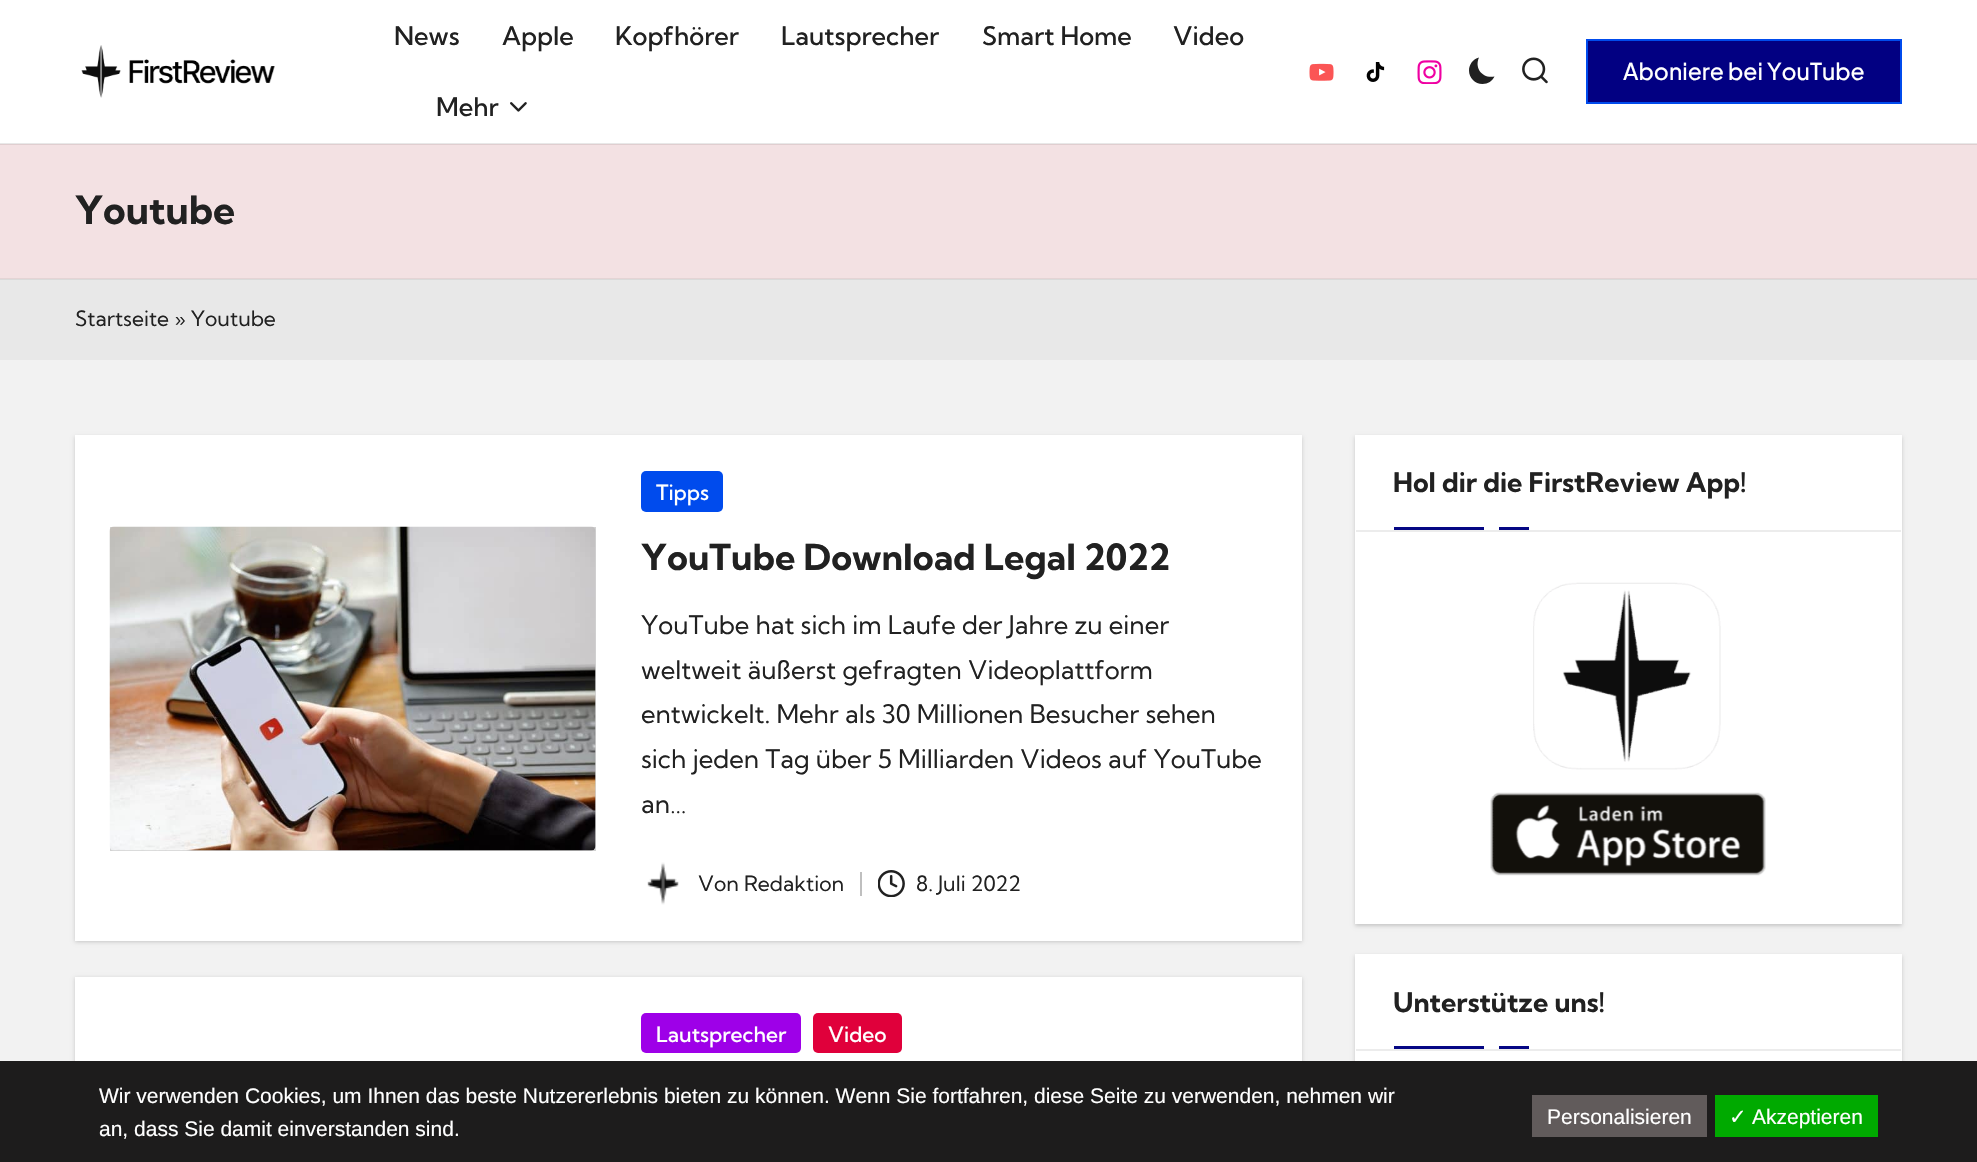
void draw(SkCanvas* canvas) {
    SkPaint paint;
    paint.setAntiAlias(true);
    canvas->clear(0xFFF2F2F2);
    paint.setColor(0xFFF3E1E3);
    canvas->drawRect(SkRect::MakeXYWH(0, 145, 1977, 133), paint);
    paint.setColor(0xFFE4D4D5);
    canvas->drawRect(SkRect::MakeXYWH(0, 278, 1977, 1), paint);
    paint.setColor(0xFFE0CED0);
    canvas->drawRect(SkRect::MakeXYWH(0, 144, 1977, 1), paint);
    paint.setColor(0xFFFFFFFF);
    canvas->drawRect(SkRect::MakeXYWH(0, 0, 1977, 143), paint);
    paint.setColor(0xFFE8E8E8);
    canvas->drawRect(SkRect::MakeXYWH(0, 143, 1977, 1), paint);
    canvas->drawImageRect(SkImages::DeferredFromEncodedData(SkData::MakeFromFileName("img1.png")), SkRect::MakeXYWH(81, 45, 194, 53), SkSamplingOptions());
    SkFont font1(fontMgr->matchFamilyStyle("Kumbh Sans", SkFontStyle(500, SkFontStyle::kNormal_Width, SkFontStyle::kUpright_Slant)), 25.5f);
    font1.setSubpixel(true);
    paint.setColor(0xFF212121);
    canvas->drawString("News", 394, 45, font1, paint);
    canvas->drawString("Apple", 502, 45, font1, paint);
    canvas->drawString("Kopfhörer", 615, 45, font1, paint);
    canvas->drawString("Lautsprecher", 781, 45, font1, paint);
    canvas->drawString("Smart Home", 982, 45, font1, paint);
    canvas->drawString("Video", 1173, 45, font1, paint);
    canvas->drawString("Mehr", 436, 116, font1, paint);
    canvas->drawImageRect(SkImages::DeferredFromEncodedData(SkData::MakeFromFileName("img2.png")), SkRect::MakeXYWH(510, 102, 17, 10), SkSamplingOptions());
    canvas->drawImageRect(SkImages::DeferredFromEncodedData(SkData::MakeFromFileName("img3.png")), SkRect::MakeXYWH(1309, 63, 25, 18), SkSamplingOptions());
    canvas->drawImageRect(SkImages::DeferredFromEncodedData(SkData::MakeFromFileName("img4.png")), SkRect::MakeXYWH(1366, 62, 19, 20), SkSamplingOptions());
    canvas->drawImageRect(SkImages::DeferredFromEncodedData(SkData::MakeFromFileName("img5.png")), SkRect::MakeXYWH(1417, 60, 25, 24), SkSamplingOptions());
    canvas->drawPath(SkPathBuilder().moveTo(1494.5f, 76.5f).cubicTo(1483, 79, 1474, 68.5f, 1479, 57.5f).cubicTo(1473, 59, 1469, 64.5f, 1469, 70.5f).cubicTo(1469, 78, 1475, 84, 1482.5f, 84).cubicTo(1488, 84, 1492.5f, 81, 1494.5f, 76.5f).close().detach(), paint);
    canvas->drawImageRect(SkImages::DeferredFromEncodedData(SkData::MakeFromFileName("img6.png")), SkRect::MakeXYWH(1522, 57, 26, 27), SkSamplingOptions());
    paint.setColor(0xFF020082);
    canvas->drawRect(SkRect::MakeXYWH(1587, 40, 314, 63), paint);
    paint.setStyle(SkPaint::kStroke_Style);
    paint.setStrokeWidth(2);
    paint.setColor(0xFF004BED);
    canvas->drawRect(SkRect::MakeXYWH(1587, 40, 314, 63), paint);
    SkFont font2(fontMgr->matchFamilyStyle("Plus Jakarta Sans", SkFontStyle(500, SkFontStyle::kNormal_Width, SkFontStyle::kUpright_Slant)), 23);
    font2.setSubpixel(true);
    paint.setStyle(SkPaint::kFill_Style);
    paint.setColor(0xFFFFFFFF);
    canvas->drawString("Aboniere bei YouTube", 1623, 80, font2, paint);
    SkFont font3(fontMgr->matchFamilyStyle("Kumbh Sans", SkFontStyle::Bold()), 39);
    font3.setSubpixel(true);
    paint.setColor(0xFF212121);
    canvas->drawString("Youtube", 75, 224, font3, paint);
    paint.setColor(0xFFE8E8E8);
    canvas->drawRect(SkRect::MakeXYWH(0, 280, 1977, 80), paint);
    paint.setColor(0xFFDADADA);
    canvas->drawRect(SkRect::MakeXYWH(0, 279, 1977, 1), paint);
    SkFont font4(fontMgr->matchFamilyStyle("Kumbh Sans", SkFontStyle::Normal()), 21);
    font4.setSubpixel(true);
    paint.setColor(0xFF212121);
    canvas->drawString("Startseite", 75, 326, font4, paint);
    canvas->drawString("» Youtube", 174, 326, font4, paint);
    paint.setColor(0x2E000000);
    paint.setMaskFilter(SkMaskFilter::MakeBlur(kNormal_SkBlurStyle, 2));
    canvas->drawRect(SkRect::MakeXYWH(75, 437, 1227, 505), paint);
    paint.setMaskFilter(nullptr);
    paint.setColor(0xFFFFFFFF);
    canvas->drawRect(SkRect::MakeXYWH(75, 435, 1227, 506), paint);
    paint.setColor(0xFFD2D2D2);
    canvas->drawRect(SkRect::MakeXYWH(110, 527, 486, 324), paint);
    canvas->drawImageRect(SkImages::DeferredFromEncodedData(SkData::MakeFromFileName("img7.png")), SkRect::MakeXYWH(109, 526, 487, 325), SkSamplingOptions());
    paint.setColor(0xFF004BED);
    canvas->drawRoundRect(SkRect::MakeXYWH(641, 471, 82, 41), 5, 5, paint);
    SkFont font5(fontMgr->matchFamilyStyle("Kumbh Sans", SkFontStyle(500, SkFontStyle::kNormal_Width, SkFontStyle::kUpright_Slant)), 21);
    font5.setSubpixel(true);
    paint.setColor(0xFFFFFFFF);
    canvas->drawString("Tipps", 656, 500, font5, paint);
    SkFont font6(fontMgr->matchFamilyStyle("Kumbh Sans", SkFontStyle::Bold()), 36);
    font6.setSubpixel(true);
    paint.setColor(0xFF212121);
    canvas->drawString("YouTube Download Legal 2022", 641, 570, font6, paint);
    SkFont font7(fontMgr->matchFamilyStyle("Kumbh Sans", SkFontStyle::Normal()), 25.5f);
    font7.setSubpixel(true);
    canvas->drawString("YouTube hat sich im Laufe der Jahre zu einer", 641, 634, font7, paint);
    canvas->drawString("weltweit äußerst gefragten Videoplattform", 641, 679, font7, paint);
    canvas->drawString("entwickelt. Mehr als 30 Millionen Besucher sehen", 641, 723, font7, paint);
    canvas->drawString("sich jeden Tag über 5 Milliarden Videos auf YouTube", 641, 768, font7, paint);
    canvas->drawString("an…", 641, 813, font7, paint);
    canvas->drawImageRect(SkImages::DeferredFromEncodedData(SkData::MakeFromFileName("img8.png")), SkRect::MakeXYWH(647, 862, 32, 43), SkSamplingOptions());
    canvas->drawString("Von Redaktion", 698, 891, font4, paint);
    paint.setColor(0xFFBFBFBF);
    canvas->drawRect(SkRect::MakeXYWH(860, 872, 2, 24), paint);
    canvas->drawImageRect(SkImages::DeferredFromEncodedData(SkData::MakeFromFileName("img9.png")), SkRect::MakeXYWH(878, 870, 27, 27), SkSamplingOptions());
    paint.setColor(0xFF212121);
    canvas->drawString("8. Juli 2022", 916, 891, font4, paint);
    paint.setColor(0x2E000000);
    paint.setMaskFilter(SkMaskFilter::MakeBlur(kNormal_SkBlurStyle, 2));
    canvas->drawRect(SkRect::MakeXYWH(75, 978, 1227, 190), paint);
    paint.setMaskFilter(nullptr);
    paint.setColor(0xFFFFFFFF);
    canvas->drawRect(SkRect::MakeXYWH(75, 977, 1227, 84), paint);
    paint.setColor(0xFF9E00E8);
    canvas->drawRoundRect(SkRect::MakeXYWH(641, 1013, 160, 40), 5, 5, paint);
    paint.setColor(0xFFFFFFFF);
    canvas->drawString("Lautsprecher", 656, 1042, font5, paint);
    paint.setColor(0xFFE0003B);
    canvas->drawRoundRect(SkRect::MakeXYWH(813, 1013, 89, 40), 5, 5, paint);
    paint.setColor(0xFFFFFFFF);
    canvas->drawString("Video", 828, 1042, font5, paint);
    paint.setColor(0x2E000000);
    paint.setMaskFilter(SkMaskFilter::MakeBlur(kNormal_SkBlurStyle, 2));
    canvas->drawRect(SkRect::MakeXYWH(1355, 437, 547, 489), paint);
    paint.setMaskFilter(nullptr);
    paint.setColor(0xFFFFFFFF);
    canvas->drawRect(SkRect::MakeXYWH(1355, 435, 547, 489), paint);
    paint.setColor(0xFFECECEC);
    canvas->drawRect(SkRect::MakeXYWH(1356, 530, 545, 2), paint);
    SkFont font8(fontMgr->matchFamilyStyle("Kumbh Sans", SkFontStyle::Bold()), 27);
    font8.setSubpixel(true);
    paint.setColor(0xFF212121);
    canvas->drawString("Hol dir die FirstReview App!", 1393, 492, font8, paint);
    paint.setColor(0xFF050784);
    canvas->drawRect(SkRect::MakeXYWH(1394, 527, 90, 3), paint);
    canvas->drawRect(SkRect::MakeXYWH(1499, 527, 30, 3), paint);
    canvas->drawImageRect(SkImages::DeferredFromEncodedData(SkData::MakeFromFileName("img10.png")), SkRect::MakeXYWH(1533, 582, 188, 188), SkSamplingOptions());
    canvas->drawImageRect(SkImages::DeferredFromEncodedData(SkData::MakeFromFileName("img11.png")), SkRect::MakeXYWH(1490, 792, 276, 84), SkSamplingOptions());
    paint.setColor(0x2E000000);
    paint.setMaskFilter(SkMaskFilter::MakeBlur(kNormal_SkBlurStyle, 2));
    canvas->drawRect(SkRect::MakeXYWH(1355, 956, 547, 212), paint);
    paint.setMaskFilter(nullptr);
    paint.setColor(0xFFFFFFFF);
    canvas->drawRect(SkRect::MakeXYWH(1355, 954, 547, 107), paint);
    paint.setColor(0xFFECECEC);
    canvas->drawRect(SkRect::MakeXYWH(1356, 1049, 545, 2), paint);
    paint.setColor(0xFF212121);
    canvas->drawString("Unterstütze uns!", 1393, 1012, font8, paint);
    paint.setColor(0xFF050784);
    canvas->drawRect(SkRect::MakeXYWH(1394, 1046, 90, 3), paint);
    canvas->drawRect(SkRect::MakeXYWH(1499, 1046, 30, 3), paint);
    paint.setColor(0xFF1D1C1C);
    canvas->drawRect(SkRect::MakeXYWH(0, 1061, 1977, 101), paint);
    SkFont font9(fontMgr->matchFamilyStyle("Liberation Sans", SkFontStyle::Normal()), 21);
    font9.setSubpixel(true);
    paint.setColor(0xFFFFFFFF);
    canvas->drawString("Wir verwenden Cookies, um Ihnen das beste Nutzererlebnis bieten zu können. Wenn Sie fortfahren, diese Seite zu verwenden, nehmen wir", 99, 1103, font9, paint);
    canvas->drawString("an, dass Sie damit einverstanden sind.", 99, 1136, font9, paint);
    paint.setColor(0xFF615B5B);
    canvas->drawRect(SkRect::MakeXYWH(1532, 1095, 175, 42), paint);
    paint.setColor(0xFFFFFFFF);
    canvas->drawString("Personalisieren", 1547, 1124, font9, paint);
    paint.setColor(0xFF00AA00);
    canvas->drawRect(SkRect::MakeXYWH(1715, 1095, 163, 42), paint);
    SkFont font10(fontMgr->matchFamilyStyle("DejaVu Sans", SkFontStyle::Normal()), 21);
    font10.setSubpixel(true);
    paint.setColor(0xFFFFFFFF);
    canvas->drawString("✓", 1729, 1124, font10, paint);
    canvas->drawString("Akzeptieren", 1752, 1124, font9, paint);
}
